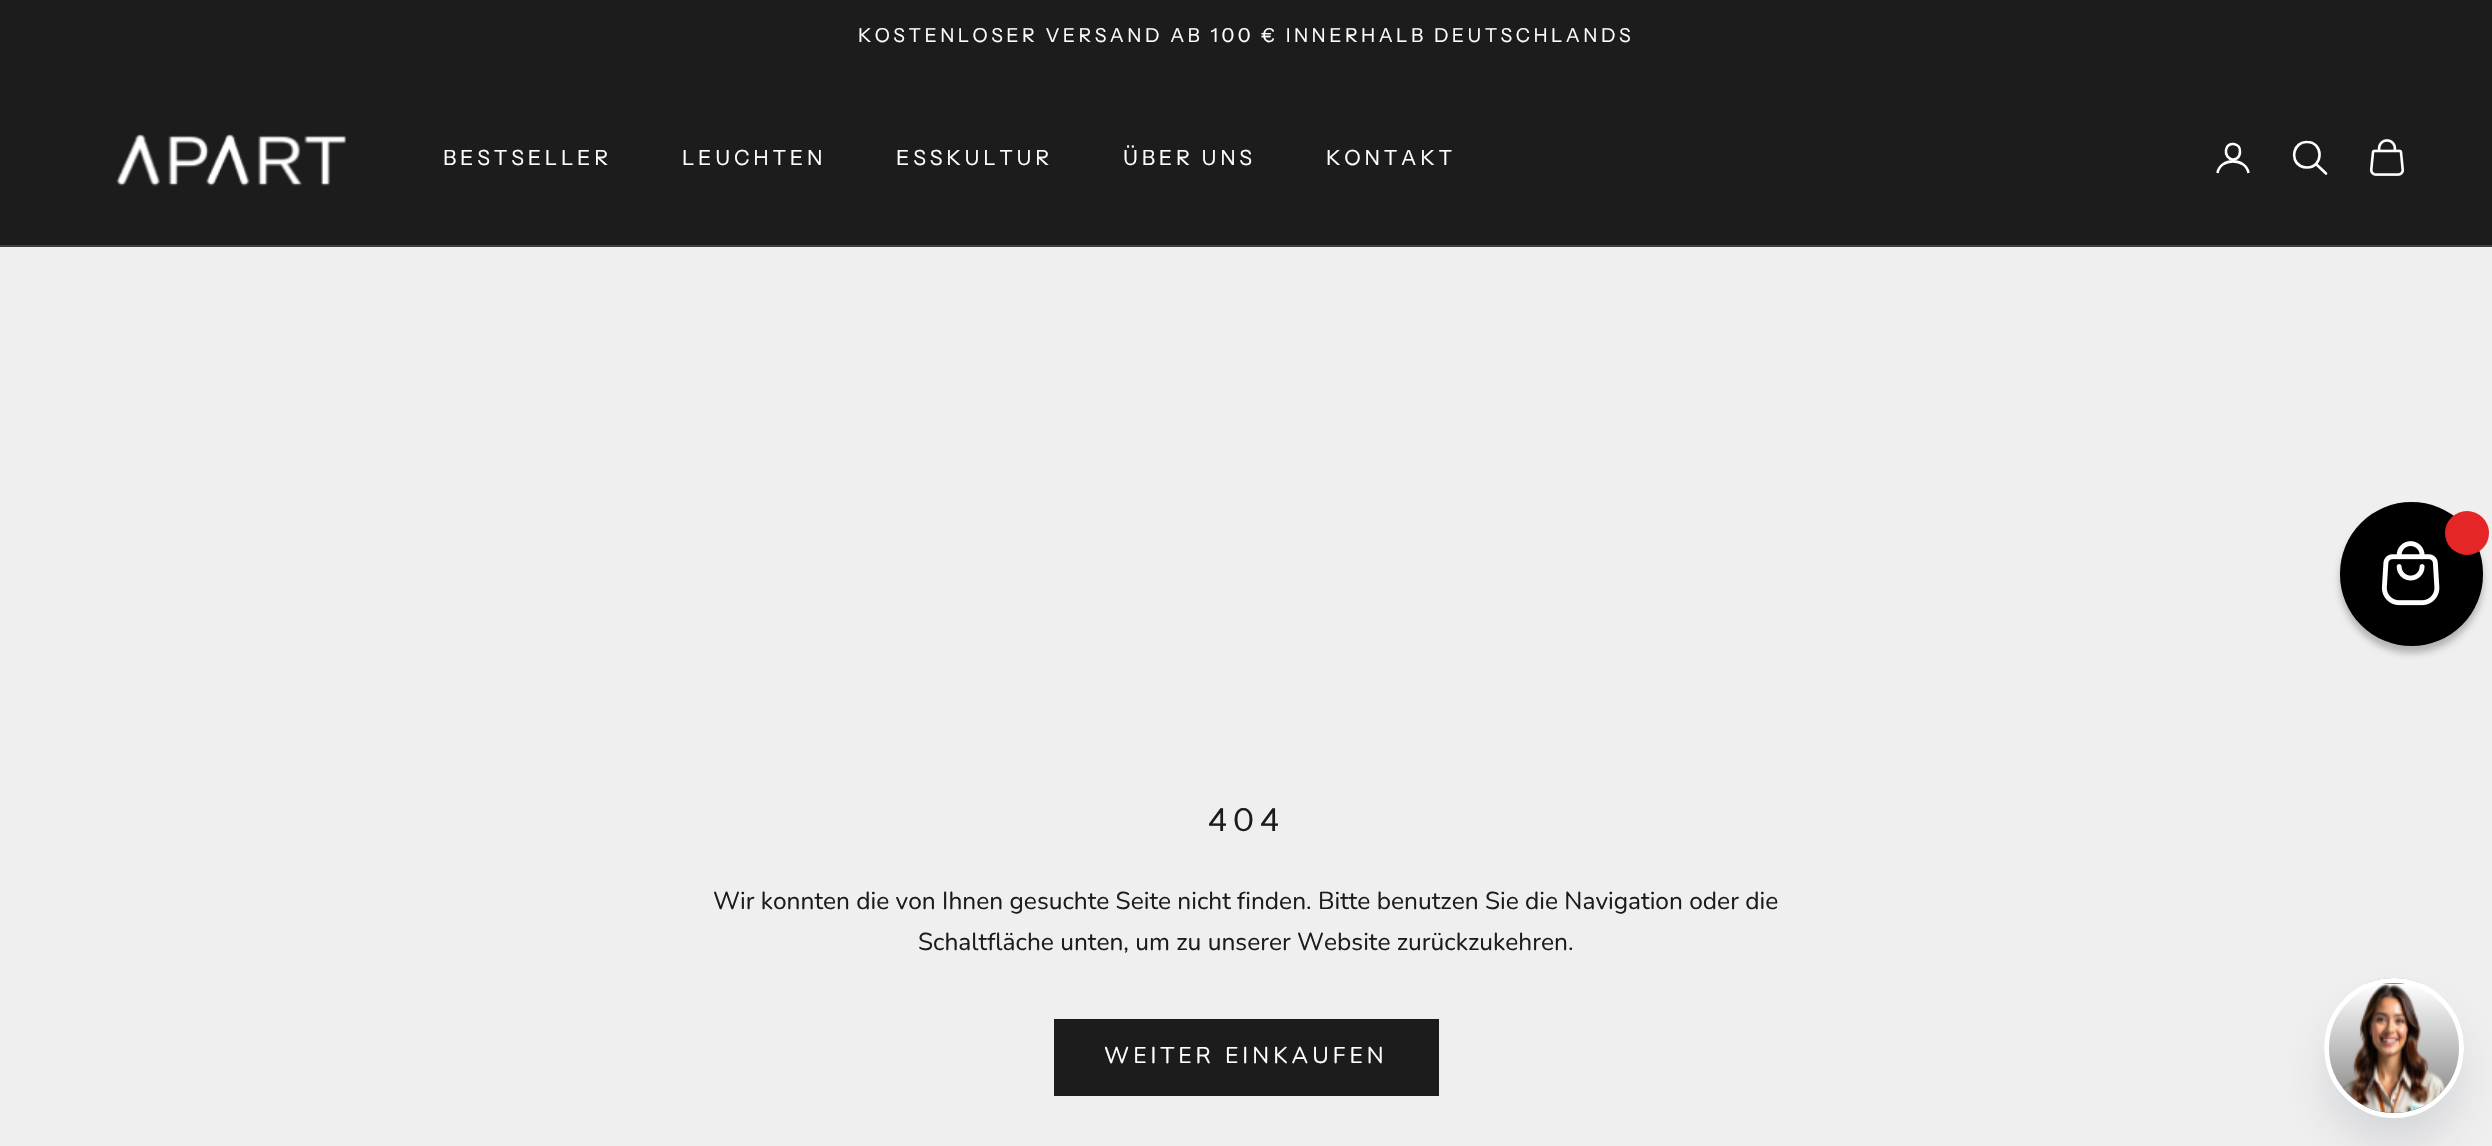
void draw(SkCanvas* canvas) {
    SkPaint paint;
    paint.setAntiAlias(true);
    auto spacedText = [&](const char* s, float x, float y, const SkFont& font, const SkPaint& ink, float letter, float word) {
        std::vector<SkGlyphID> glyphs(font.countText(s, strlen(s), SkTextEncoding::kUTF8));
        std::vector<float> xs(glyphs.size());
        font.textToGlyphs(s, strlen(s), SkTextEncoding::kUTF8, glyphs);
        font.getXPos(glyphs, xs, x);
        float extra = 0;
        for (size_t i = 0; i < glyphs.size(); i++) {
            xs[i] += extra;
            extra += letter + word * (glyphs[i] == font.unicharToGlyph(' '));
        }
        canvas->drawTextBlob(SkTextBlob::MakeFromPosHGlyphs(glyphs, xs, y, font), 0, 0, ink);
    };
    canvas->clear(0xFFEFEFEF);
    paint.setColor(0xFF1C1C1C);
    canvas->drawRect(SkRect::MakeXYWH(0, 0, 2492, 245), paint);
    SkFont font1(fontMgr->matchFamilyStyle("Instrument Sans", SkFontStyle::Normal()), 19.25f);
    font1.setSubpixel(true);
    paint.setColor(0xFFFFFFFF);
    spacedText("KOSTENLOSER VERSAND AB 100 € INNERHALB DEUTSCHLANDS", 858, 42, font1, paint, 3.45f, 0);
    paint.setColor(0xFF3E3E3E);
    canvas->drawRect(SkRect::MakeXYWH(0, 245, 2492, 2), paint);
    canvas->drawImageRect(SkImages::DeferredFromEncodedData(SkData::MakeFromFileName("img1.png")), SkRect::MakeXYWH(116, 133, 230, 54), SkSamplingOptions());
    SkFont font2(fontMgr->matchFamilyStyle("Instrument Sans", SkFontStyle::Normal()), 21);
    font2.setSubpixel(true);
    paint.setColor(0xFFFFFFFF);
    spacedText("BESTSELLER", 443, 165, font2, paint, 3.75f, 0);
    spacedText("LEUCHTEN", 682, 165, font2, paint, 3.75f, 0);
    spacedText("ESSKULTUR", 896, 165, font2, paint, 3.75f, 0);
    spacedText("ÜBER UNS", 1123, 165, font2, paint, 3.75f, 0);
    spacedText("KONTAKT", 1326, 165, font2, paint, 3.75f, 0);
    paint.setStyle(SkPaint::kStroke_Style);
    paint.setStrokeWidth(2.6f);
    paint.setStrokeCap(SkPaint::kRound_Cap);
    paint.setStrokeJoin(SkPaint::kRound_Join);
    canvas->drawPath(SkPathBuilder().moveTo(2240, 152).cubicTo(2239.5f, 163.5f, 2224.5f, 161, 2226, 150).cubicTo(2227, 141, 2241, 142.5f, 2240, 152).close().detach(), paint);
    paint.setStrokeCap(SkPaint::kButt_Cap);
    paint.setStrokeJoin(SkPaint::kMiter_Join);
    canvas->drawPath(SkPathBuilder().moveTo(2217.5f, 173).cubicTo(2220, 157.5f, 2246, 157.5f, 2248.5f, 173).detach(), paint);
    canvas->drawPath(SkPathBuilder().moveTo(2307, 142).cubicTo(2294, 141.5f, 2289, 159.5f, 2300.5f, 166).cubicTo(2302.5f, 167, 2305, 167.5f, 2307, 167.5f).cubicTo(2324, 167, 2323.5f, 142, 2307, 142).close().detach(), paint);
    paint.setStrokeCap(SkPaint::kRound_Cap);
    canvas->drawPath(SkPathBuilder().moveTo(2316.5f, 164.5f).lineTo(2326, 173.5f).detach(), paint);
    canvas->drawImageRect(SkImages::DeferredFromEncodedData(SkData::MakeFromFileName("img2.png")), SkRect::MakeXYWH(2370, 139, 34, 37), SkSamplingOptions());
    paint.setStyle(SkPaint::kFill_Style);
    paint.setColor(0x40000000);
    paint.setMaskFilter(SkMaskFilter::MakeBlur(kNormal_SkBlurStyle, 3.5f));
    canvas->drawRoundRect(SkRect::MakeXYWH(2340, 509, 143, 144), 71.5f, 71.5f, paint);
    paint.setMaskFilter(nullptr);
    paint.setColor(0xFF000000);
    canvas->drawRoundRect(SkRect::MakeXYWH(2340, 502, 143, 144), 71.5f, 71.5f, paint);
    paint.setColor(0xFFE42626);
    canvas->drawCircle(2467, 533, 22, paint);
    canvas->drawImageRect(SkImages::DeferredFromEncodedData(SkData::MakeFromFileName("img3.png")), SkRect::MakeXYWH(2381, 541, 59, 65), SkSamplingOptions());
    SkFont font3(fontMgr->matchFamilyStyle("Instrument Sans", SkFontStyle::Normal()), 31.5f);
    font3.setSubpixel(true);
    paint.setColor(0xFF1C1C1C);
    spacedText("404", 1208, 831, font3, paint, 6, 0);
    SkFont font4(fontMgr->matchFamilyStyle("Nunito", SkFontStyle(200, SkFontStyle::kNormal_Width, SkFontStyle::kUpright_Slant)), 24.5f);
    font4.setSubpixel(true);
    canvas->drawString("Wir konnten die von Ihnen gesuchte Seite nicht finden. Bitte benutzen Sie die Navigation oder die", 713, 909, font4, paint);
    canvas->drawString("Schaltfläche unten, um zu unserer Website zurückzukehren.", 918, 950, font4, paint);
    canvas->drawRect(SkRect::MakeXYWH(1055, 1020, 383, 75), paint);
    paint.setStyle(SkPaint::kStroke_Style);
    paint.setStrokeWidth(2);
    paint.setStrokeCap(SkPaint::kButt_Cap);
    canvas->drawRect(SkRect::MakeXYWH(1055, 1020, 383, 75), paint);
    SkFont font5(fontMgr->matchFamilyStyle("Nunito", SkFontStyle(200, SkFontStyle::kNormal_Width, SkFontStyle::kUpright_Slant)), 22.75f);
    font5.setSubpixel(true);
    paint.setStyle(SkPaint::kFill_Style);
    paint.setColor(0xFFFFFFFF);
    spacedText("WEITER EINKAUFEN", 1104, 1063, font5, paint, 4.1f, 0);
    paint.setColor(0x29545F6F);
    paint.setMaskFilter(SkMaskFilter::MakeBlur(kNormal_SkBlurStyle, 21));
    canvas->drawRoundRect(SkRect::MakeXYWH(2324, 1006, 140, 140), 70, 70, paint);
    paint.setMaskFilter(nullptr);
    canvas->save();
    canvas->clipPath(SkPathBuilder().moveTo(2394, 978).cubicTo(2432.5f, 978, 2464, 1009.5f, 2464, 1048).cubicTo(2464, 1086.5f, 2432.5f, 1118, 2394, 1118).cubicTo(2355.5f, 1118, 2324, 1086.5f, 2324, 1048).cubicTo(2324, 1009.5f, 2355.5f, 978, 2394, 978).close().detach(), true);
    {
        const SkColor colors[] = {0xFFFFFFFF, 0xFF817E7E};
        const float stops[] = {0, 1};
        const SkPoint ends[] = {{2394, 854}, {2394, 984}};
        paint.setShader(SkGradientShader::MakeLinear(ends, colors, stops, 2, SkTileMode::kClamp));
        paint.setAlpha(255);
    }
    canvas->drawRect(SkRect::MakeXYWH(2365, 978, 58, 6), paint);
    {
        const SkColor colors[] = {0xFFFFFFFF, 0xFF817E7E};
        const float stops[] = {0, 1};
        const SkPoint ends[] = {{2394, 984}, {2394, 1113}};
        paint.setShader(SkGradientShader::MakeLinear(ends, colors, stops, 2, SkTileMode::kClamp));
        paint.setAlpha(255);
    }
    canvas->drawRect(SkRect::MakeXYWH(2324, 984, 140, 129), paint);
    canvas->restore();
    paint.setStyle(SkPaint::kStroke_Style);
    paint.setStrokeWidth(5);
    paint.setShader(nullptr);
    paint.setColor(0xFFFFFFFF);
    canvas->drawCircle(2394, 1048, 67.5f, paint);
    canvas->drawImageRect(SkImages::DeferredFromEncodedData(SkData::MakeFromFileName("img4.png")), SkRect::MakeXYWH(2342, 984, 103, 129), SkSamplingOptions());
}
